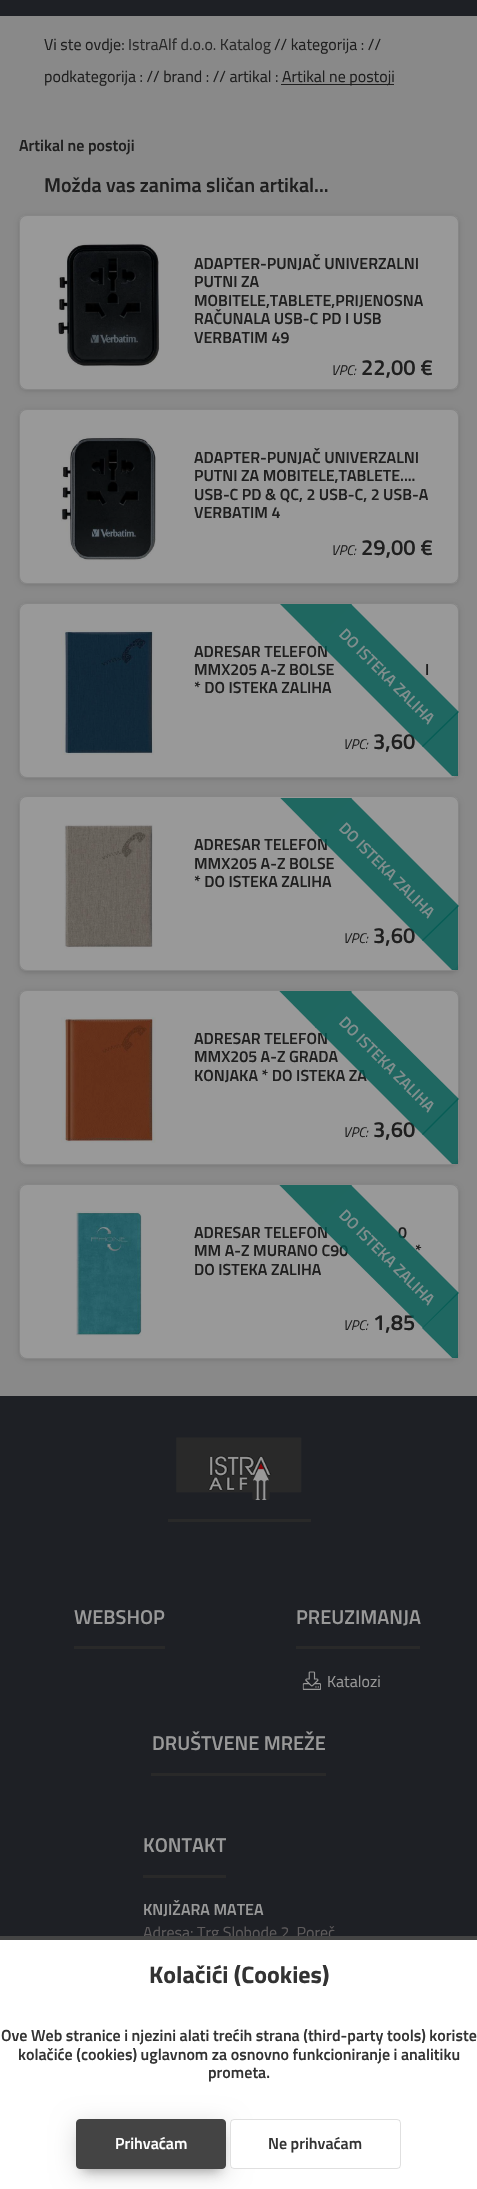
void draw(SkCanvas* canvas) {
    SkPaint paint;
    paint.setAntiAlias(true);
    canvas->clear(0xFF898989);
    paint.setColor(0xFF1E2025);
    canvas->drawRect(SkRect::MakeXYWH(0, 0, 477, 16), paint);
    SkFont font1(fontMgr->matchFamilyStyle("Titillium Web", SkFontStyle::Normal()), 16);
    font1.setSubpixel(true);
    paint.setColor(0xFF1F1F1F);
    canvas->drawString("Vi ste ovdje:", 44, 50, font1, paint);
    paint.setColor(0xFF292929);
    canvas->drawString("IstraAlf d.o.o. Katalog", 128, 50, font1, paint);
    paint.setColor(0xFF1F1F1F);
    canvas->drawString("// kategorija : //", 274, 50, font1, paint);
    canvas->drawString("podkategorija : // brand : // artikal :", 44, 82, font1, paint);
    canvas->drawRect(SkRect::MakeXYWH(281, 84, 113, 1), paint);
    canvas->drawString("Artikal ne postoji", 282, 82, font1, paint);
    SkFont font2(fontMgr->matchFamilyStyle("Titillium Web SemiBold", SkFontStyle(600, SkFontStyle::kNormal_Width, SkFontStyle::kUpright_Slant)), 16);
    font2.setSubpixel(true);
    canvas->drawString("Artikal ne postoji", 19, 151, font2, paint);
    SkFont font3(fontMgr->matchFamilyStyle("Titillium Web SemiBold", SkFontStyle(600, SkFontStyle::kNormal_Width, SkFontStyle::kUpright_Slant)), 20);
    font3.setSubpixel(true);
    canvas->drawString("Možda vas zanima sličan artikal...", 44, 192, font3, paint);
    paint.setColor(0x24000000);
    paint.setMaskFilter(SkMaskFilter::MakeBlur(kNormal_SkBlurStyle, 2.5f));
    canvas->drawRoundRect(SkRect::MakeXYWH(19, 216, 440, 175), 8, 8, paint);
    paint.setMaskFilter(nullptr);
    paint.setColor(0xFF999999);
    canvas->drawRoundRect(SkRect::MakeXYWH(19, 215, 440, 175), 8, 8, paint);
    paint.setStyle(SkPaint::kStroke_Style);
    paint.setStrokeWidth(1);
    paint.setColor(0x1F000000);
    canvas->drawRoundRect(SkRect::MakeXYWH(19.5f, 215.5f, 439, 174), 7.5f, 7.5f, paint);
    canvas->drawImageRect(SkImages::DeferredFromEncodedData(SkData::MakeFromFileName("img1.png")), SkRect::MakeXYWH(58, 243, 102, 124), SkSamplingOptions());
    paint.setStyle(SkPaint::kFill_Style);
    paint.setColor(0xFF1F1F1F);
    canvas->drawString("ADAPTER-PUNJAČ UNIVERZALNI", 194, 269, font2, paint);
    canvas->drawString("PUTNI ZA", 194, 287, font2, paint);
    canvas->drawString("MOBITELE,TABLETE,PRIJENOSNA", 194, 306, font2, paint);
    canvas->drawString("RAČUNALA USB-C PD I USB", 194, 324, font2, paint);
    canvas->drawString("VERBATIM 49", 194, 343, font2, paint);
    SkFont font4(fontMgr->matchFamilyStyle("Titillium Web", SkFontStyle::Italic()), 14);
    font4.setSubpixel(true);
    canvas->drawString("VPC:", 331, 375, font4, paint);
    SkFont font5(fontMgr->matchFamilyStyle("Titillium Web SemiBold", SkFontStyle(600, SkFontStyle::kNormal_Width, SkFontStyle::kUpright_Slant)), 22);
    font5.setSubpixel(true);
    canvas->drawString("22,00 €", 361, 375, font5, paint);
    paint.setColor(0x24000000);
    paint.setMaskFilter(SkMaskFilter::MakeBlur(kNormal_SkBlurStyle, 2.5f));
    canvas->drawRoundRect(SkRect::MakeXYWH(19, 410, 440, 175), 8, 8, paint);
    paint.setMaskFilter(nullptr);
    paint.setColor(0xFF999999);
    canvas->drawRoundRect(SkRect::MakeXYWH(19, 409, 440, 175), 8, 8, paint);
    paint.setStyle(SkPaint::kStroke_Style);
    paint.setColor(0x1F000000);
    canvas->drawRoundRect(SkRect::MakeXYWH(19.5f, 409.5f, 439, 174), 7.5f, 7.5f, paint);
    canvas->drawImageRect(SkImages::DeferredFromEncodedData(SkData::MakeFromFileName("img2.png")), SkRect::MakeXYWH(61, 436, 95, 125), SkSamplingOptions());
    paint.setStyle(SkPaint::kFill_Style);
    paint.setColor(0xFF1F1F1F);
    canvas->drawString("ADAPTER-PUNJAČ UNIVERZALNI", 194, 463, font2, paint);
    canvas->drawString("PUTNI ZA MOBITELE,TABLETE....", 194, 481, font2, paint);
    canvas->drawString("USB-C PD & QC, 2 USB-C, 2 USB-A", 194, 500, font2, paint);
    canvas->drawString("VERBATIM 4", 194, 518, font2, paint);
    canvas->drawString("VPC:", 331, 555, font4, paint);
    canvas->drawString("29,00 €", 361, 555, font5, paint);
    paint.setColor(0x24000000);
    paint.setMaskFilter(SkMaskFilter::MakeBlur(kNormal_SkBlurStyle, 2.5f));
    canvas->drawRoundRect(SkRect::MakeXYWH(19, 604, 440, 175), 8, 8, paint);
    paint.setMaskFilter(nullptr);
    paint.setColor(0xFF999999);
    canvas->drawRoundRect(SkRect::MakeXYWH(19, 603, 440, 175), 8, 8, paint);
    paint.setStyle(SkPaint::kStroke_Style);
    paint.setColor(0x1F000000);
    canvas->drawRoundRect(SkRect::MakeXYWH(19.5f, 603.5f, 439, 174), 7.5f, 7.5f, paint);
    paint.setStyle(SkPaint::kFill_Style);
    paint.setColor(0xFF1F1F1F);
    canvas->drawString("ADRESAR TELEFON", 194, 657, font2, paint);
    canvas->drawString("MMX205 A-Z BOLSE", 194, 675, font2, paint);
    canvas->drawString("I", 425, 675, font2, paint);
    canvas->drawString("* DO ISTEKA ZALIHA", 194, 693, font2, paint);
    canvas->drawString("VPC:", 343, 749, font4, paint);
    canvas->drawString("3,60", 373, 749, font5, paint);
    paint.setColor(0xCC005A52);
    canvas->drawPath(SkPathBuilder().moveTo(351, 604).lineTo(459, 712).lineTo(423, 747).lineTo(315, 639).close().detach(), paint);
    paint.setColor(0xFF808E8D);
    canvas->save();
    canvas->rotate(45, 338, 635);
    canvas->drawString("DO ISTEKA ZALIHA", 338, 635, font2, paint);
    canvas->restore();
    canvas->save();
    canvas->clipRect(SkRect::MakeXYWH(20, 604, 438, 172));
    paint.setColor(0xFF1F6760);
    canvas->drawPath(SkPathBuilder().moveTo(244, 497).lineTo(352, 605).lineTo(316, 640).lineTo(209, 533).close().detach(), paint);
    paint.setColor(0xCC005A52);
    canvas->drawPath(SkPathBuilder().moveTo(458, 711).lineTo(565, 819).lineTo(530, 854).lineTo(422, 746).close().detach(), paint);
    canvas->restore();
    canvas->drawImageRect(SkImages::DeferredFromEncodedData(SkData::MakeFromFileName("img3.png")), SkRect::MakeXYWH(61, 630, 94, 125), SkSamplingOptions());
    paint.setColor(0x24000000);
    paint.setMaskFilter(SkMaskFilter::MakeBlur(kNormal_SkBlurStyle, 2.5f));
    canvas->drawRoundRect(SkRect::MakeXYWH(19, 798, 440, 175), 8, 8, paint);
    paint.setMaskFilter(nullptr);
    paint.setColor(0xFF999999);
    canvas->drawRoundRect(SkRect::MakeXYWH(19, 796, 440, 175), 8, 8, paint);
    paint.setStyle(SkPaint::kStroke_Style);
    paint.setColor(0x1F000000);
    canvas->drawRoundRect(SkRect::MakeXYWH(19.5f, 796.5f, 439, 174), 7.5f, 7.5f, paint);
    paint.setStyle(SkPaint::kFill_Style);
    paint.setColor(0xFF1F1F1F);
    canvas->drawString("ADRESAR TELEFON", 194, 850, font2, paint);
    canvas->drawString("MMX205 A-Z BOLSE", 194, 869, font2, paint);
    canvas->drawString("* DO ISTEKA ZALIHA", 194, 887, font2, paint);
    canvas->drawString("VPC:", 343, 943, font4, paint);
    canvas->drawString("3,60", 373, 943, font5, paint);
    paint.setColor(0xCC005A52);
    canvas->drawPath(SkPathBuilder().moveTo(351, 798).lineTo(459, 906).lineTo(423, 941).lineTo(315, 833).close().detach(), paint);
    paint.setColor(0xFF808E8D);
    canvas->save();
    canvas->rotate(45, 338, 829);
    canvas->drawString("DO ISTEKA ZALIHA", 338, 829, font2, paint);
    canvas->restore();
    canvas->save();
    canvas->clipRect(SkRect::MakeXYWH(20, 798, 438, 172));
    paint.setColor(0xFF1F6760);
    canvas->drawPath(SkPathBuilder().moveTo(244, 691).lineTo(352, 799).lineTo(316, 834).lineTo(209, 726).close().detach(), paint);
    paint.setColor(0xCC005A52);
    canvas->drawPath(SkPathBuilder().moveTo(458, 905).lineTo(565, 1012).lineTo(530, 1048).lineTo(422, 940).close().detach(), paint);
    canvas->restore();
    canvas->drawImageRect(SkImages::DeferredFromEncodedData(SkData::MakeFromFileName("img4.png")), SkRect::MakeXYWH(64, 824, 89, 125), SkSamplingOptions());
    paint.setColor(0x24000000);
    paint.setMaskFilter(SkMaskFilter::MakeBlur(kNormal_SkBlurStyle, 2.5f));
    canvas->drawRoundRect(SkRect::MakeXYWH(19, 991, 440, 175), 8, 8, paint);
    paint.setMaskFilter(nullptr);
    paint.setColor(0xFF999999);
    canvas->drawRoundRect(SkRect::MakeXYWH(19, 990, 440, 175), 8, 8, paint);
    paint.setStyle(SkPaint::kStroke_Style);
    paint.setColor(0x1F000000);
    canvas->drawRoundRect(SkRect::MakeXYWH(19.5f, 990.5f, 439, 174), 7.5f, 7.5f, paint);
    paint.setStyle(SkPaint::kFill_Style);
    paint.setColor(0xFF1F1F1F);
    canvas->drawString("ADRESAR TELEFON", 194, 1044, font2, paint);
    canvas->drawString("MMX205 A-Z GRADA", 194, 1062, font2, paint);
    canvas->drawString("KONJAKA * DO ISTEKA ZA", 194, 1081, font2, paint);
    canvas->drawString("VPC:", 343, 1137, font4, paint);
    canvas->drawString("3,60", 373, 1137, font5, paint);
    paint.setColor(0xCC005A52);
    canvas->drawPath(SkPathBuilder().moveTo(351, 992).lineTo(459, 1099).lineTo(423, 1135).lineTo(315, 1027).close().detach(), paint);
    paint.setColor(0xFF808E8D);
    canvas->save();
    canvas->rotate(45, 338, 1023);
    canvas->drawString("DO ISTEKA ZALIHA", 338, 1023, font2, paint);
    canvas->restore();
    canvas->save();
    canvas->clipRect(SkRect::MakeXYWH(20, 991, 438, 173));
    paint.setColor(0xFF1F6760);
    canvas->drawPath(SkPathBuilder().moveTo(244, 885).lineTo(352, 992).lineTo(316, 1028).lineTo(209, 920).close().detach(), paint);
    paint.setColor(0xCC005A52);
    canvas->drawPath(SkPathBuilder().moveTo(458, 1098).lineTo(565, 1206).lineTo(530, 1242).lineTo(422, 1134).close().detach(), paint);
    canvas->restore();
    canvas->drawImageRect(SkImages::DeferredFromEncodedData(SkData::MakeFromFileName("img5.png")), SkRect::MakeXYWH(61, 1017, 95, 126), SkSamplingOptions());
    paint.setColor(0x24000000);
    paint.setMaskFilter(SkMaskFilter::MakeBlur(kNormal_SkBlurStyle, 2.5f));
    canvas->drawRoundRect(SkRect::MakeXYWH(19, 1185, 440, 175), 8, 8, paint);
    paint.setMaskFilter(nullptr);
    paint.setColor(0xFF999999);
    canvas->drawRoundRect(SkRect::MakeXYWH(19, 1184, 440, 175), 8, 8, paint);
    paint.setStyle(SkPaint::kStroke_Style);
    paint.setColor(0x1F000000);
    canvas->drawRoundRect(SkRect::MakeXYWH(19.5f, 1184.5f, 439, 174), 7.5f, 7.5f, paint);
    paint.setStyle(SkPaint::kFill_Style);
    paint.setColor(0xFF1F1F1F);
    canvas->drawString("ADRESAR TELEFON", 194, 1238, font2, paint);
    canvas->drawString("0", 398, 1238, font2, paint);
    canvas->drawString("MM A-Z MURANO C90", 194, 1256, font2, paint);
    canvas->drawString("*", 415, 1256, font2, paint);
    canvas->drawString("DO ISTEKA ZALIHA", 194, 1275, font2, paint);
    canvas->drawString("VPC:", 343, 1330, font4, paint);
    canvas->drawString("1,85", 373, 1330, font5, paint);
    paint.setColor(0xCC005A52);
    canvas->drawPath(SkPathBuilder().moveTo(351, 1185).lineTo(459, 1293).lineTo(423, 1328).lineTo(315, 1221).close().detach(), paint);
    paint.setColor(0xFF808E8D);
    canvas->save();
    canvas->rotate(45, 338, 1216);
    canvas->drawString("DO ISTEKA ZALIHA", 338, 1216, font2, paint);
    canvas->restore();
    canvas->save();
    canvas->clipRect(SkRect::MakeXYWH(20, 1185, 438, 173));
    paint.setColor(0xFF1F6760);
    canvas->drawPath(SkPathBuilder().moveTo(244, 1078).lineTo(352, 1186).lineTo(316, 1222).lineTo(209, 1114).close().detach(), paint);
    paint.setColor(0xCC005A52);
    canvas->drawPath(SkPathBuilder().moveTo(458, 1292).lineTo(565, 1400).lineTo(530, 1435).lineTo(422, 1328).close().detach(), paint);
    canvas->restore();
    canvas->drawImageRect(SkImages::DeferredFromEncodedData(SkData::MakeFromFileName("img6.png")), SkRect::MakeXYWH(76, 1211, 66, 126), SkSamplingOptions());
    paint.setColor(0xFF1E2025);
    canvas->drawRect(SkRect::MakeXYWH(0, 1396, 477, 540), paint);
    paint.setColor(0xFF292929);
    canvas->drawRect(SkRect::MakeXYWH(168, 1519, 143, 3), paint);
    canvas->drawImageRect(SkImages::DeferredFromEncodedData(SkData::MakeFromFileName("img7.png")), SkRect::MakeXYWH(176, 1437, 126, 63), SkSamplingOptions());
    canvas->drawRect(SkRect::MakeXYWH(74, 1646, 91, 3), paint);
    paint.setColor(0xFF999999);
    canvas->drawString("WEBSHOP", 74, 1624, font3, paint);
    paint.setColor(0xFF292929);
    canvas->drawRect(SkRect::MakeXYWH(296, 1646, 124, 3), paint);
    paint.setColor(0xFF999999);
    canvas->drawString("PREUZIMANJA", 296, 1624, font3, paint);
    canvas->drawImageRect(SkImages::DeferredFromEncodedData(SkData::MakeFromFileName("img8.png")), SkRect::MakeXYWH(302, 1671, 19, 19), SkSamplingOptions());
    canvas->drawString("Katalozi", 327, 1687, font1, paint);
    paint.setColor(0xFF292929);
    canvas->drawRect(SkRect::MakeXYWH(151, 1773, 175, 3), paint);
    paint.setColor(0xFF999999);
    canvas->drawString("DRUŠTVENE MREŽE", 152, 1750, font3, paint);
    paint.setColor(0xFF292929);
    canvas->drawRect(SkRect::MakeXYWH(143, 1875, 83, 3), paint);
    paint.setColor(0xFF999999);
    canvas->drawString("KONTAKT", 143, 1852, font3, paint);
    canvas->drawString("KNJIŽARA MATEA", 143, 1915, font2, paint);
    paint.setColor(0xFF5E5B5C);
    canvas->drawString("Adresa: Trg Slobode 2, Poreč", 143, 1938, font1, paint);
    paint.setColor(0xFFFFFFFF);
    canvas->drawRect(SkRect::MakeXYWH(0, 1940, 477, 249), paint);
    paint.setColor(0xFF444444);
    canvas->drawRect(SkRect::MakeXYWH(0, 1936, 477, 4), paint);
    SkFont font6(fontMgr->matchFamilyStyle("Titillium Web", SkFontStyle::Bold()), 24);
    font6.setSubpixel(true);
    paint.setColor(0xFF333333);
    canvas->drawString("Kolačići (Cookies)", 149, 1983, font6, paint);
    canvas->drawString("Ove Web stranice i njezini alati trećih strana (third-party tools) koriste", 1, 2041, font2, paint);
    canvas->drawString("kolačiće (cookies) uglavnom za osnovno funkcioniranje i analitiku", 18, 2060, font2, paint);
    canvas->drawString("prometa.", 208, 2078, font2, paint);
    paint.setColor(0x66444444);
    paint.setMaskFilter(SkMaskFilter::MakeBlur(kNormal_SkBlurStyle, 6));
    canvas->drawRect(SkRect::MakeXYWH(83, 2134, 137, 37), paint);
    paint.setMaskFilter(nullptr);
    paint.setColor(0x24000000);
    paint.setMaskFilter(SkMaskFilter::MakeBlur(kNormal_SkBlurStyle, 12.5f));
    canvas->drawRoundRect(SkRect::MakeXYWH(76, 2124, 150, 50), 4, 4, paint);
    paint.setMaskFilter(nullptr);
    paint.setColor(0xFF444444);
    canvas->drawRoundRect(SkRect::MakeXYWH(76.5f, 2119.5f, 149, 49), 3.5f, 3.5f, paint);
    paint.setStyle(SkPaint::kStroke_Style);
    canvas->drawRoundRect(SkRect::MakeXYWH(76.5f, 2119.5f, 149, 49), 3.5f, 3.5f, paint);
    paint.setStyle(SkPaint::kFill_Style);
    paint.setColor(0xFFFFFFFF);
    canvas->drawString("Prihvaćam", 115, 2149, font2, paint);
    canvas->drawRoundRect(SkRect::MakeXYWH(230, 2119, 171, 50), 4, 4, paint);
    paint.setStyle(SkPaint::kStroke_Style);
    paint.setColor(0x1F000000);
    canvas->drawRoundRect(SkRect::MakeXYWH(230.5f, 2119.5f, 170, 49), 3.5f, 3.5f, paint);
    paint.setStyle(SkPaint::kFill_Style);
    paint.setColor(0xFF333333);
    canvas->drawString("Ne prihvaćam", 268, 2149, font2, paint);
}
